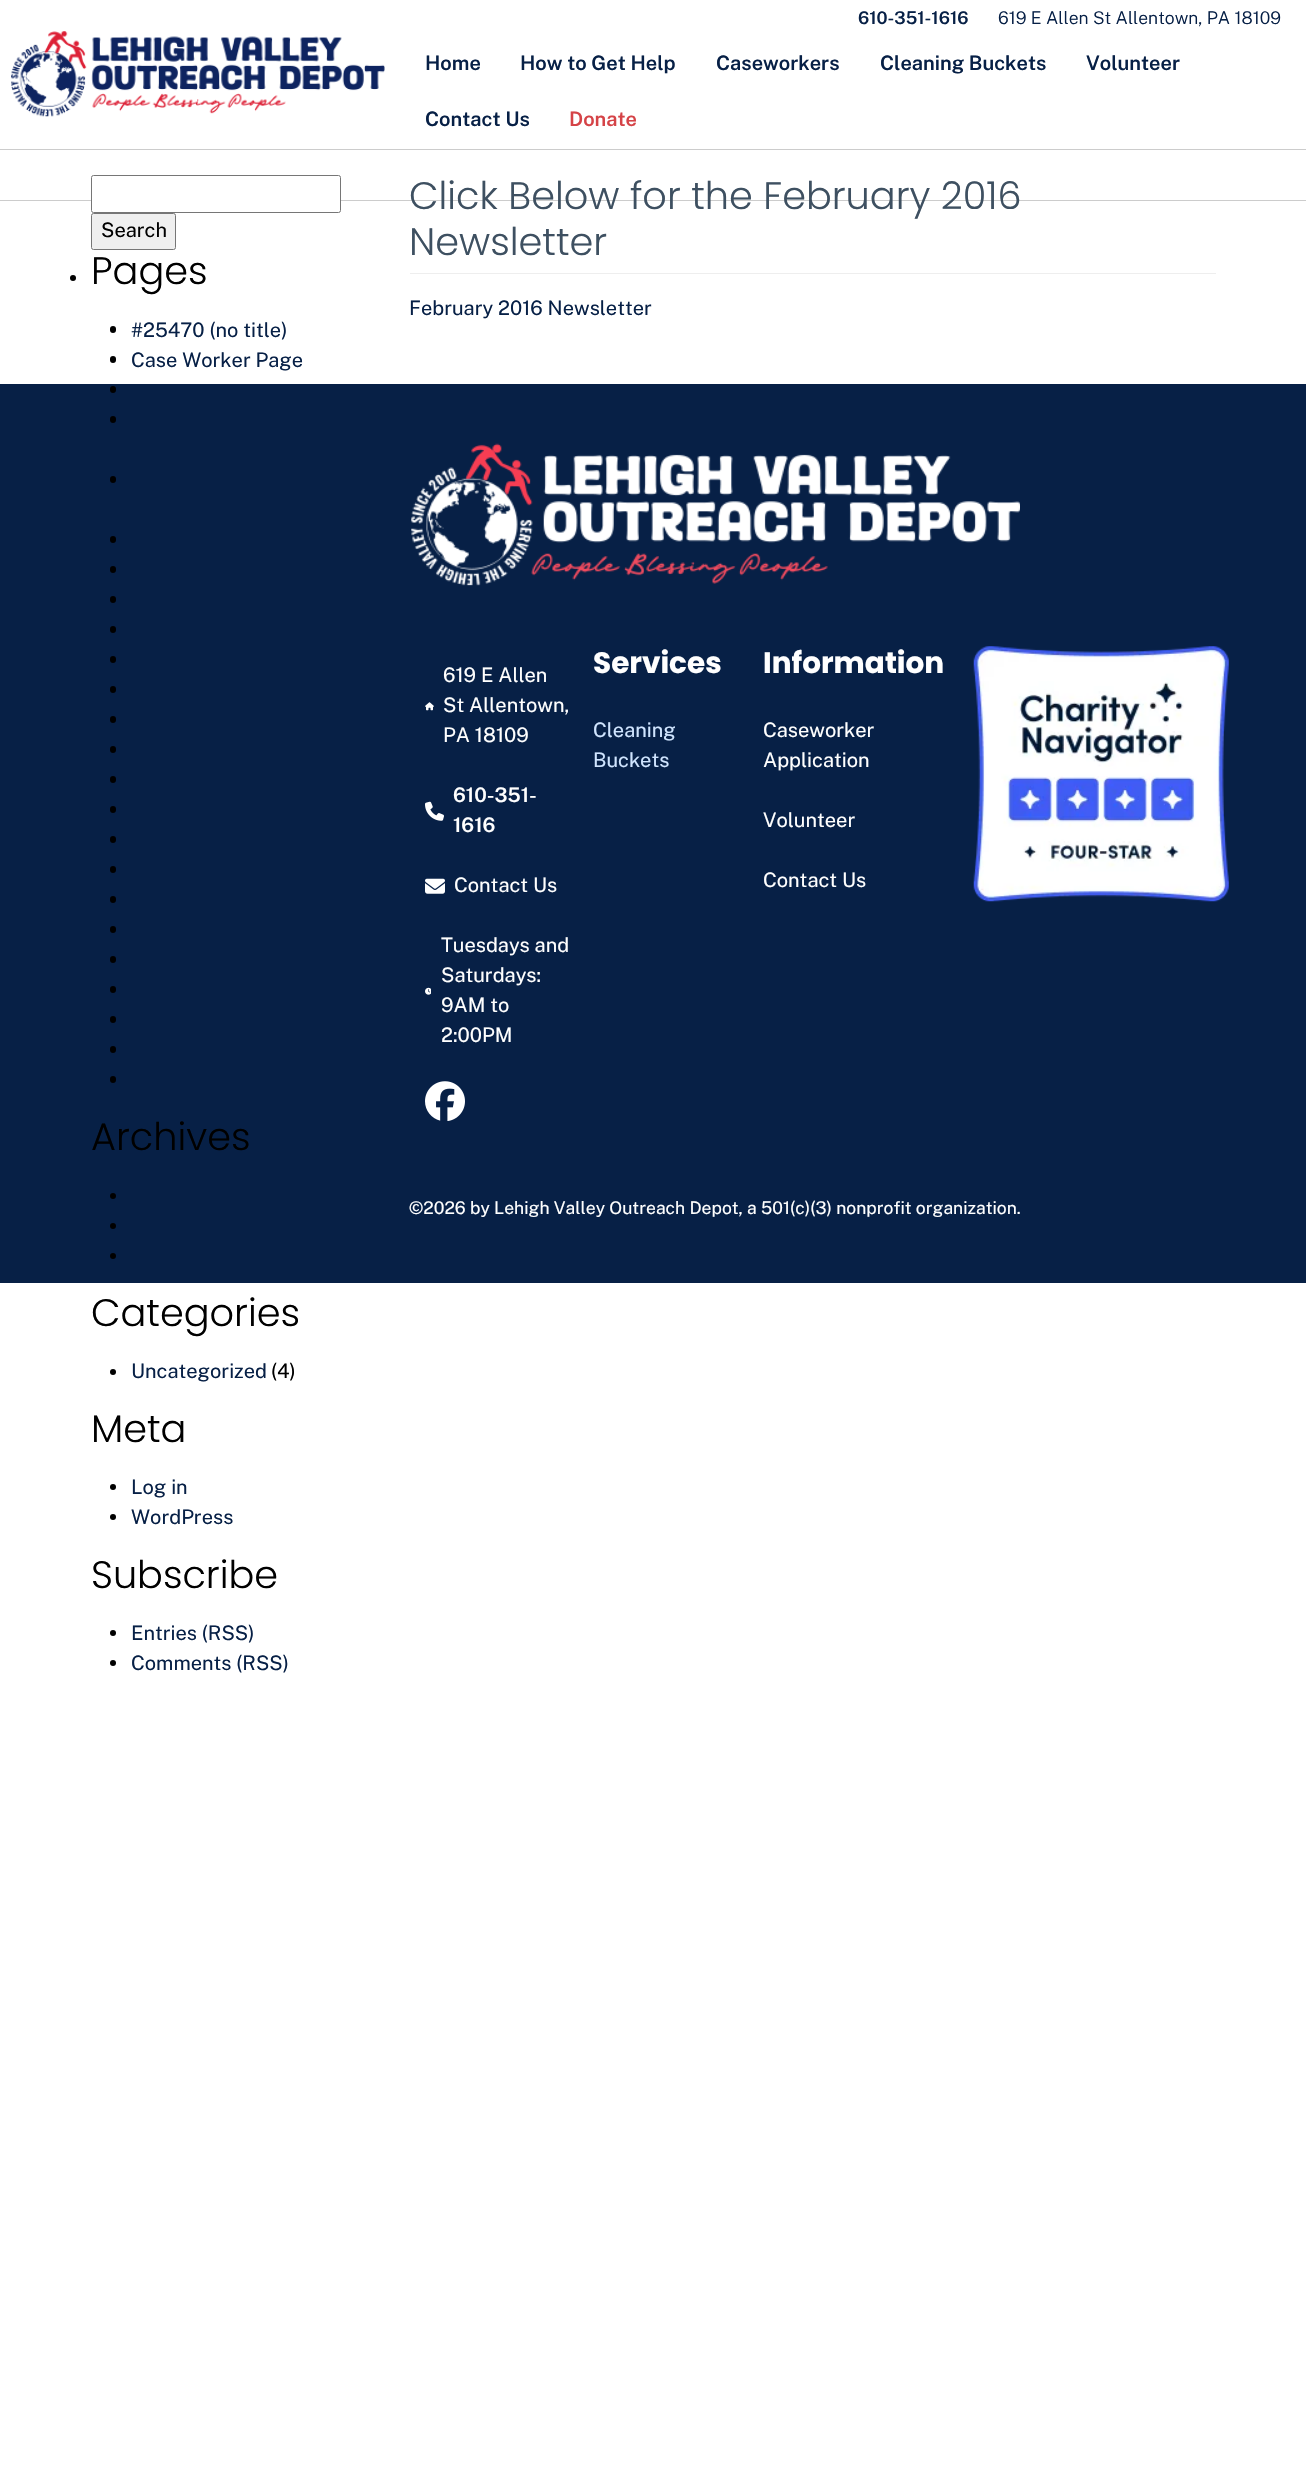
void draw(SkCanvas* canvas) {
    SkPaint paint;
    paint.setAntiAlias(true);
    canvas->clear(0xFFFFFFFF);
    canvas->drawImageRect(SkImages::DeferredFromEncodedData(SkData::MakeFromFileName("img1.png")), SkRect::MakeXYWH(11, 31, 374, 86), SkSamplingOptions());
    SkFont font1(fontMgr->matchFamilyStyle("Public Sans", SkFontStyle(600, SkFontStyle::kNormal_Width, SkFontStyle::kUpright_Slant)), 17.5f);
    font1.setSubpixel(true);
    paint.setColor(0xFF072046);
    canvas->drawString("610-351-1616", 858, 24, font1, paint);
    SkFont font2(fontMgr->matchFamilyStyle("Public Sans", SkFontStyle(300, SkFontStyle::kNormal_Width, SkFontStyle::kUpright_Slant)), 17.5f);
    font2.setSubpixel(true);
    canvas->drawString("619 E Allen St Allentown, PA 18109", 998, 24, font2, paint);
    SkFont font3(fontMgr->matchFamilyStyle("Public Sans", SkFontStyle(600, SkFontStyle::kNormal_Width, SkFontStyle::kUpright_Slant)), 20);
    font3.setSubpixel(true);
    canvas->drawString("Home", 425, 70, font3, paint);
    canvas->drawString("How to Get Help", 520, 70, font3, paint);
    canvas->drawString("Caseworkers", 716, 70, font3, paint);
    canvas->drawString("Cleaning Buckets", 880, 70, font3, paint);
    canvas->drawString("Volunteer", 1086, 70, font3, paint);
    canvas->drawString("Contact Us", 425, 126, font3, paint);
    paint.setColor(0xFFD54347);
    canvas->drawString("Donate", 569, 126, font3, paint);
    paint.setColor(0xFFCCCCCC);
    canvas->drawRect(SkRect::MakeXYWH(0, 149, 1306, 1), paint);
    canvas->drawRect(SkRect::MakeXYWH(0, 200, 1306, 1), paint);
    paint.setColor(0xFFFFFFFF);
    canvas->drawRoundRect(SkRect::MakeXYWH(91.5f, 175.5f, 249, 37), 2, 2, paint);
    paint.setStyle(SkPaint::kStroke_Style);
    paint.setStrokeWidth(1);
    paint.setColor(0xFF767676);
    canvas->drawRoundRect(SkRect::MakeXYWH(91.5f, 175.5f, 249, 37), 2, 2, paint);
    paint.setStyle(SkPaint::kFill_Style);
    paint.setColor(0xFFEFEFEF);
    canvas->drawRoundRect(SkRect::MakeXYWH(91.5f, 213.5f, 84, 36), 2, 2, paint);
    paint.setStyle(SkPaint::kStroke_Style);
    paint.setColor(0xFF767676);
    canvas->drawRoundRect(SkRect::MakeXYWH(91.5f, 213.5f, 84, 36), 2, 2, paint);
    SkFont font4(fontMgr->matchFamilyStyle("Public Sans", SkFontStyle::Normal()), 20);
    font4.setSubpixel(true);
    paint.setStyle(SkPaint::kFill_Style);
    paint.setColor(0xFF000000);
    canvas->drawString("Search", 101, 237, font4, paint);
    canvas->drawCircle(73, 278, 3, paint);
    SkFont font5(fontMgr->matchFamilyStyle("Poppins", SkFontStyle(300, SkFontStyle::kNormal_Width, SkFontStyle::kUpright_Slant)), 38.25f);
    font5.setSubpixel(true);
    canvas->drawString("Pages", 91, 284, font5, paint);
    canvas->drawRoundRect(SkRect::MakeXYWH(110, 326, 6, 7), 3, 3, paint);
    paint.setColor(0xFF072046);
    canvas->drawString("#25470 (no title)", 131, 337, font4, paint);
    paint.setColor(0xFF000000);
    canvas->drawRoundRect(SkRect::MakeXYWH(110, 356, 6, 7), 3, 3, paint);
    paint.setColor(0xFF072046);
    canvas->drawString("Case Worker Page", 131, 367, font4, paint);
    canvas->drawRect(SkRect::MakeXYWH(0, 384, 1306, 899), paint);
    paint.setColor(0xFF000000);
    canvas->drawRoundRect(SkRect::MakeXYWH(110, 386, 6, 7), 3, 3, paint);
    canvas->drawRoundRect(SkRect::MakeXYWH(110, 416, 6, 7), 3, 3, paint);
    canvas->drawRoundRect(SkRect::MakeXYWH(110, 476, 6, 7), 3, 3, paint);
    canvas->drawRoundRect(SkRect::MakeXYWH(110, 536, 6, 7), 3, 3, paint);
    canvas->drawRoundRect(SkRect::MakeXYWH(110, 566, 6, 7), 3, 3, paint);
    canvas->drawRoundRect(SkRect::MakeXYWH(110, 596, 6, 7), 3, 3, paint);
    canvas->drawRoundRect(SkRect::MakeXYWH(110, 626, 6, 7), 3, 3, paint);
    canvas->drawRoundRect(SkRect::MakeXYWH(110, 656, 6, 7), 3, 3, paint);
    canvas->drawRoundRect(SkRect::MakeXYWH(110, 686, 6, 7), 3, 3, paint);
    canvas->drawRoundRect(SkRect::MakeXYWH(110, 716, 6, 7), 3, 3, paint);
    canvas->drawRoundRect(SkRect::MakeXYWH(110, 746, 6, 7), 3, 3, paint);
    canvas->drawRoundRect(SkRect::MakeXYWH(110, 776, 6, 7), 3, 3, paint);
    canvas->drawRoundRect(SkRect::MakeXYWH(110, 806, 6, 7), 3, 3, paint);
    canvas->drawRoundRect(SkRect::MakeXYWH(110, 836, 6, 7), 3, 3, paint);
    canvas->drawRoundRect(SkRect::MakeXYWH(110, 866, 6, 7), 3, 3, paint);
    canvas->drawRoundRect(SkRect::MakeXYWH(110, 896, 6, 7), 3, 3, paint);
    canvas->drawRoundRect(SkRect::MakeXYWH(110, 926, 6, 7), 3, 3, paint);
    canvas->drawRoundRect(SkRect::MakeXYWH(110, 956, 6, 7), 3, 3, paint);
    canvas->drawRoundRect(SkRect::MakeXYWH(110, 986, 6, 7), 3, 3, paint);
    canvas->drawRoundRect(SkRect::MakeXYWH(110, 1016, 6, 7), 3, 3, paint);
    canvas->drawRoundRect(SkRect::MakeXYWH(110, 1046, 6, 7), 3, 3, paint);
    canvas->drawRoundRect(SkRect::MakeXYWH(110, 1076, 6, 7), 3, 3, paint);
    canvas->drawString("Archives", 91, 1150, font5, paint);
    canvas->drawCircle(113, 1196, 3, paint);
    canvas->drawCircle(113, 1226, 3, paint);
    canvas->drawCircle(113, 1256, 3, paint);
    canvas->drawString("Categories", 91, 1326, font5, paint);
    canvas->drawCircle(113, 1372, 3, paint);
    paint.setColor(0xFF072046);
    canvas->drawString("Uncategorized", 131, 1378, font4, paint);
    paint.setColor(0xFF000000);
    canvas->drawString("(4)", 271, 1378, font4, paint);
    canvas->drawString("Meta", 91, 1442, font5, paint);
    canvas->drawCircle(113, 1487, 3, paint);
    paint.setColor(0xFF072046);
    canvas->drawString("Log in", 131, 1494, font4, paint);
    paint.setColor(0xFF000000);
    canvas->drawCircle(113, 1517, 3, paint);
    paint.setColor(0xFF072046);
    canvas->drawString("WordPress", 131, 1524, font4, paint);
    paint.setColor(0xFF000000);
    canvas->drawString("Subscribe", 91, 1588, font5, paint);
    canvas->drawCircle(113, 1633, 3, paint);
    paint.setColor(0xFF072046);
    canvas->drawString("Entries (RSS)", 131, 1640, font4, paint);
    paint.setColor(0xFF000000);
    canvas->drawCircle(113, 1663, 3, paint);
    paint.setColor(0xFF072046);
    canvas->drawString("Comments (RSS)", 131, 1670, font4, paint);
    paint.setColor(0xFFEEEEEE);
    canvas->drawRect(SkRect::MakeXYWH(410, 273, 806, 1), paint);
    paint.setColor(0xFF3E5061);
    canvas->drawString("Click Below for the February 2016", 409, 209, font5, paint);
    canvas->drawString("Newsletter", 409, 255, font5, paint);
    paint.setColor(0xFF072046);
    canvas->drawString("February 2016 Newsletter", 409, 315, font4, paint);
    canvas->drawImageRect(SkImages::DeferredFromEncodedData(SkData::MakeFromFileName("img2.png")), SkRect::MakeXYWH(411, 443, 609, 143), SkSamplingOptions());
    canvas->drawImageRect(SkImages::DeferredFromEncodedData(SkData::MakeFromFileName("img3.png")), SkRect::MakeXYWH(425, 702, 9, 9), SkSamplingOptions());
    paint.setColor(0xFFFFFFFF);
    canvas->drawString("619 E Allen", 443, 682, font4, paint);
    canvas->drawString("St Allentown,", 443, 712, font4, paint);
    canvas->drawString("PA 18109", 443, 742, font4, paint);
    canvas->drawImageRect(SkImages::DeferredFromEncodedData(SkData::MakeFromFileName("img4.png")), SkRect::MakeXYWH(425, 801, 19, 20), SkSamplingOptions());
    canvas->drawString("610-351-", 453, 802, font3, paint);
    canvas->drawString("1616", 453, 832, font3, paint);
    canvas->drawImageRect(SkImages::DeferredFromEncodedData(SkData::MakeFromFileName("img5.png")), SkRect::MakeXYWH(425, 878, 20, 16), SkSamplingOptions());
    canvas->drawString("Contact Us", 454, 892, font4, paint);
    canvas->drawImageRect(SkImages::DeferredFromEncodedData(SkData::MakeFromFileName("img6.png")), SkRect::MakeXYWH(425, 987, 6, 8), SkSamplingOptions());
    canvas->drawString("Tuesdays and", 441, 952, font4, paint);
    canvas->drawString("Saturdays:", 441, 982, font4, paint);
    canvas->drawString("9AM to", 441, 1012, font4, paint);
    canvas->drawString("2:00PM", 441, 1042, font4, paint);
    canvas->drawImageRect(SkImages::DeferredFromEncodedData(SkData::MakeFromFileName("img7.png")), SkRect::MakeXYWH(425, 1081, 40, 40), SkSamplingOptions());
    SkFont font6(fontMgr->matchFamilyStyle("Poppins", SkFontStyle::Bold()), 29.5f);
    font6.setSubpixel(true);
    canvas->drawString("Services", 593, 673, font6, paint);
    paint.setColor(0xFFD0E5FF);
    canvas->drawString("Cleaning", 593, 737, font4, paint);
    canvas->drawString("Buckets", 593, 767, font4, paint);
    paint.setColor(0xFFFFFFFF);
    canvas->drawString("Information", 763, 673, font6, paint);
    canvas->drawString("Caseworker", 763, 737, font4, paint);
    canvas->drawString("Application", 763, 767, font4, paint);
    canvas->drawString("Volunteer", 763, 827, font4, paint);
    canvas->drawString("Contact Us", 763, 887, font4, paint);
    canvas->drawImageRect(SkImages::DeferredFromEncodedData(SkData::MakeFromFileName("img8.png")), SkRect::MakeXYWH(973, 646, 256, 256), SkSamplingOptions());
    SkFont font7(fontMgr->matchFamilyStyle("Public Sans", SkFontStyle::Normal()), 17.5f);
    font7.setSubpixel(true);
    canvas->drawString("©2026 by Lehigh Valley Outreach Depot, a 501(c)(3) nonprofit organization.", 409, 1214, font7, paint);
}
